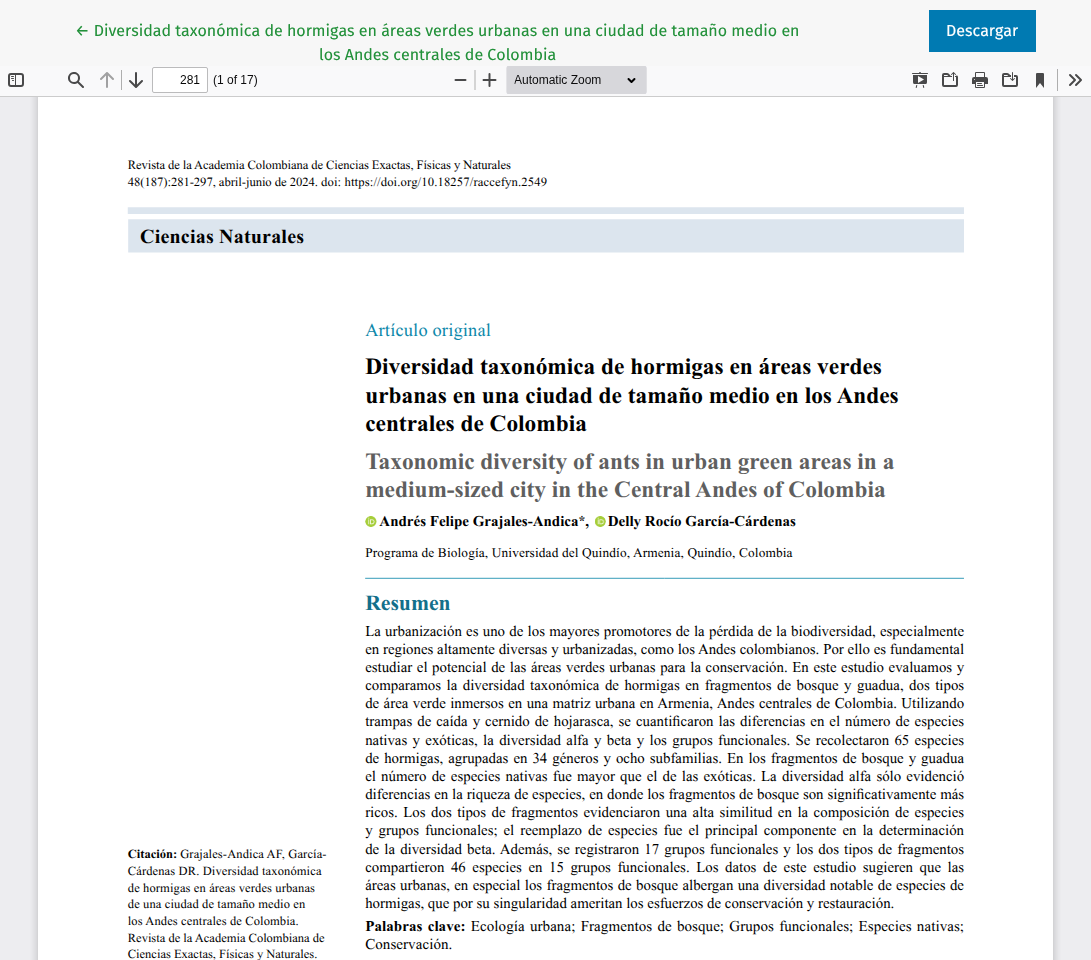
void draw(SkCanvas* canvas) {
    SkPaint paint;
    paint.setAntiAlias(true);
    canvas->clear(0xFFF7F7F7);
    SkFont font1(fontMgr->matchFamilyStyle("Fira Sans", SkFontStyle::Normal()), 16);
    font1.setSubpixel(true);
    paint.setColor(0xFF22913A);
    canvas->drawString("← Diversidad taxonómica de hormigas en áreas verdes urbanas en una ciudad de tamaño medio en", 75, 36, font1, paint);
    canvas->drawString("los Andes centrales de Colombia", 319, 60, font1, paint);
    paint.setColor(0xFF007AB2);
    canvas->drawRect(SkRect::MakeXYWH(929, 10, 107, 42), paint);
    paint.setColor(0xFFFFFFFF);
    canvas->drawString("Descargar", 946, 36, font1, paint);
    canvas->drawImageRect(SkImages::DeferredFromEncodedData(SkData::MakeFromFileName("img1.png")), SkRect::MakeXYWH(0, 66, 1091, 894), SkSamplingOptions());
}
